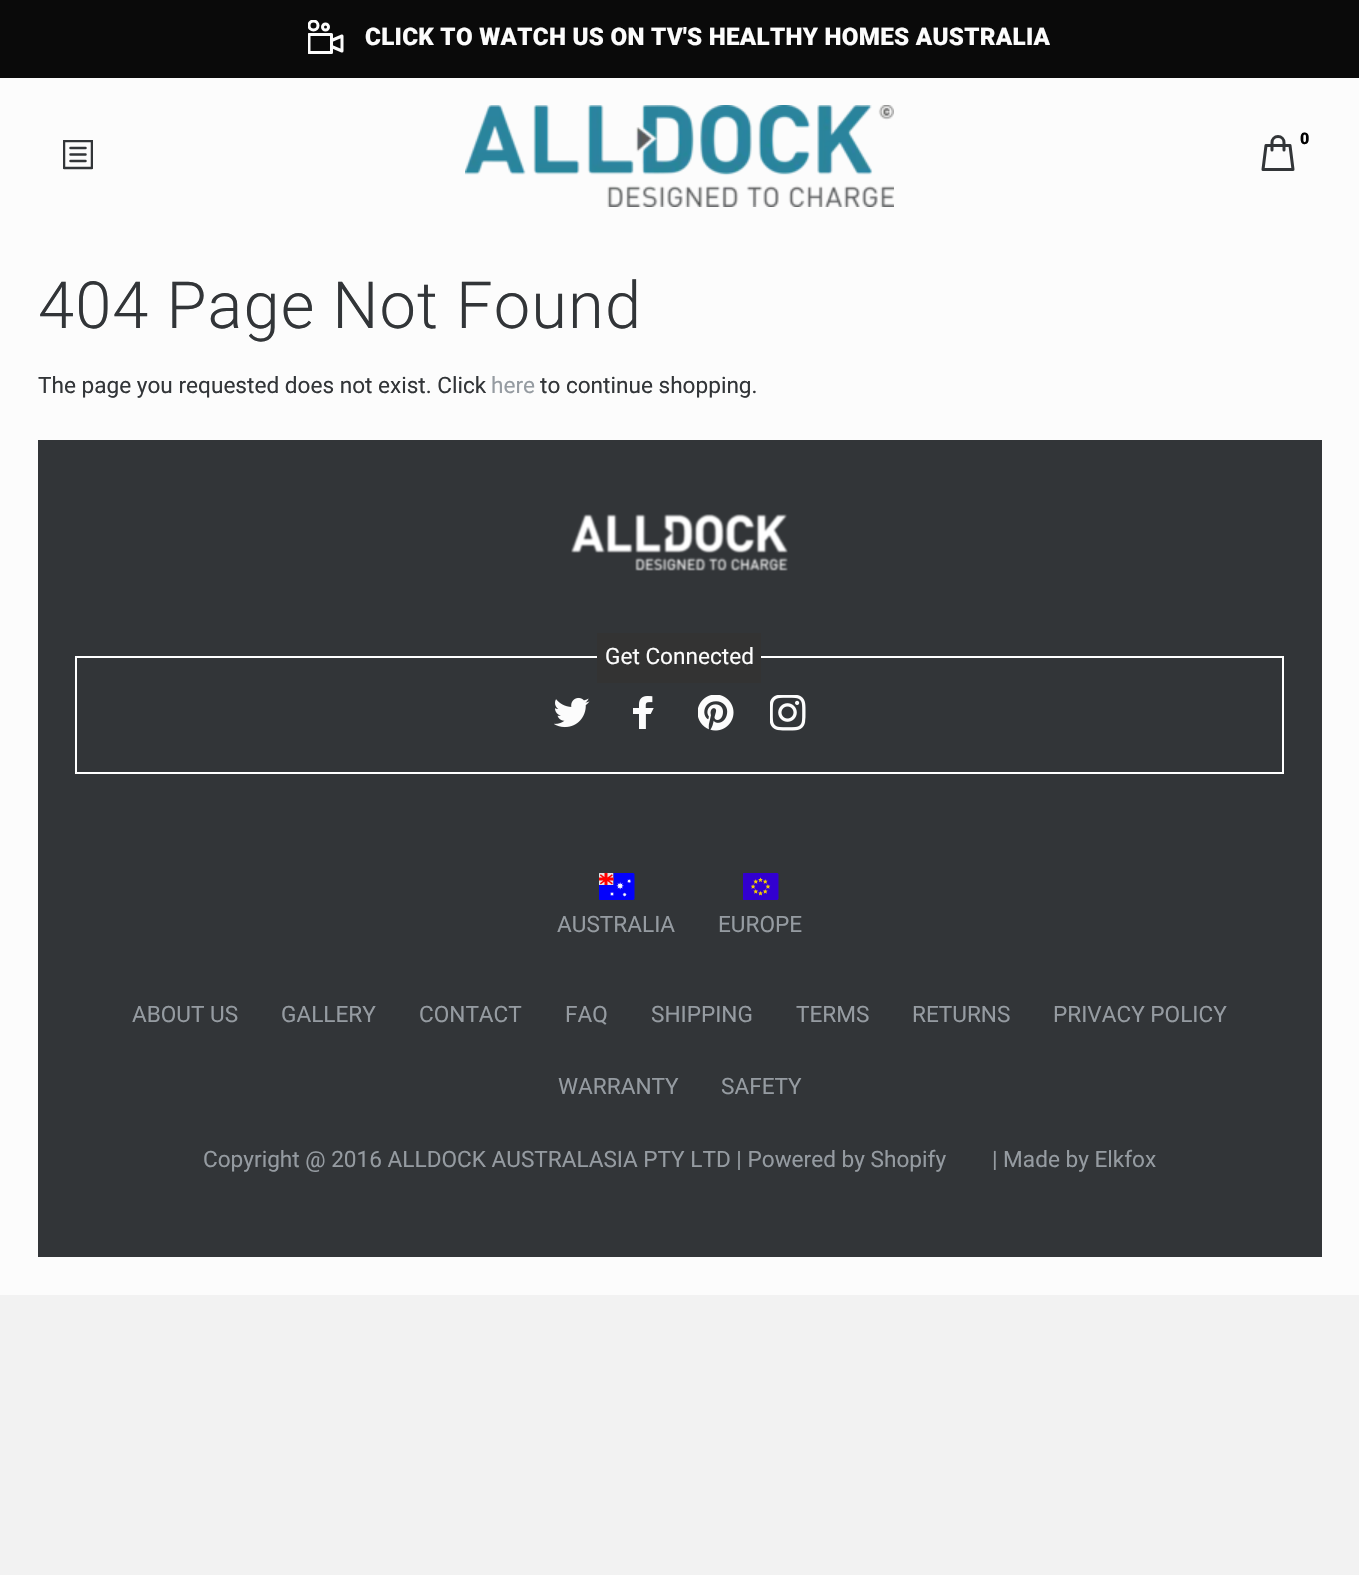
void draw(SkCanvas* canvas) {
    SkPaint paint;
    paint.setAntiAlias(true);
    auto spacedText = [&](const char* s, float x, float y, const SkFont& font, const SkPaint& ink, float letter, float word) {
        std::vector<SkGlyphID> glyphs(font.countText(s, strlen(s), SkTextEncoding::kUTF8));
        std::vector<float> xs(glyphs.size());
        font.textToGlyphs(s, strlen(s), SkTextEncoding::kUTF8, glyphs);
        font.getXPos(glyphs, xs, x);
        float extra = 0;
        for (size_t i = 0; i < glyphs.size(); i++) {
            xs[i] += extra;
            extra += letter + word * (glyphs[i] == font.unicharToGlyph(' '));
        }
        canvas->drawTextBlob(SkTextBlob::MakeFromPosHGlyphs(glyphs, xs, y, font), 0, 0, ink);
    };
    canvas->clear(0xFFF2F2F2);
    paint.setColor(0xFFFCFCFC);
    canvas->drawRect(SkRect::MakeXYWH(0, 78, 1359, 1217), paint);
    paint.setColor(0xFF0A0A0A);
    canvas->drawRect(SkRect::MakeXYWH(0, 0, 1359, 78), paint);
    canvas->save();
    canvas->clipRect(SkRect::MakeXYWH(308, 20, 36, 36));
    paint.setStyle(SkPaint::kStroke_Style);
    paint.setStrokeWidth(3);
    paint.setColor(0xFFFCFCFC);
    canvas->drawCircle(313.5f, 25.5f, 4.5f, paint);
    canvas->restore();
    canvas->drawCircle(325.5f, 27, 3, paint);
    paint.setStrokeCap(SkPaint::kRound_Cap);
    paint.setStrokeJoin(SkPaint::kRound_Join);
    canvas->drawPath(SkPathBuilder().moveTo(342, 51).lineTo(331.5f, 46.5f).lineTo(331.5f, 40.5f).lineTo(342, 36).close().detach(), paint);
    canvas->save();
    canvas->clipRect(SkRect::MakeXYWH(308, 20, 36, 36));
    canvas->drawPath(SkPathBuilder().moveTo(309, 34.5f).lineTo(331.5f, 34.5f).lineTo(331.5f, 52.5f).lineTo(309, 52.5f).close().detach(), paint);
    canvas->restore();
    SkFont font1(fontMgr->matchFamilyStyle("Roboto", SkFontStyle(900, SkFontStyle::kNormal_Width, SkFontStyle::kUpright_Slant)), 24.15f);
    font1.setSubpixel(true);
    paint.setStyle(SkPaint::kFill_Style);
    spacedText("CLICK TO WATCH US ON TV'S HEALTHY HOMES AUSTRALIA", 365, 45, font1, paint, 0.3f, 0);
    canvas->drawImageRect(SkImages::DeferredFromEncodedData(SkData::MakeFromFileName("img1.png")), SkRect::MakeXYWH(465, 105, 429, 102), SkSamplingOptions());
    paint.setStyle(SkPaint::kStroke_Style);
    paint.setColor(0xFF323538);
    canvas->drawPath(SkPathBuilder().moveTo(1293, 169.5f).lineTo(1263, 169.5f).lineTo(1266, 145.5f).lineTo(1290, 145.5f).close().moveTo(1272, 150).lineTo(1272, 142.5f).cubicTo(1272, 139, 1274.5f, 136.5f, 1278, 136.5f).cubicTo(1281.5f, 136.5f, 1284, 139, 1284, 142.5f).lineTo(1284, 150).detach(), paint);
    SkFont font2(fontMgr->matchFamilyStyle("Roboto", SkFontStyle(900, SkFontStyle::kNormal_Width, SkFontStyle::kUpright_Slant)), 16);
    font2.setSubpixel(true);
    paint.setStyle(SkPaint::kFill_Style);
    paint.setColor(0xFF000000);
    canvas->drawString("0", 1300, 144, font2, paint);
    canvas->save();
    canvas->clipRect(SkRect::MakeXYWH(63, 140, 30, 30));
    paint.setStyle(SkPaint::kStroke_Style);
    paint.setStrokeWidth(2.5f);
    paint.setColor(0xFF323538);
    canvas->drawPath(SkPathBuilder().moveTo(64, 141).lineTo(92, 141).lineTo(92, 168).lineTo(64, 168).close().moveTo(70.5f, 154.5f).lineTo(85.5f, 154.5f).moveTo(70.5f, 148).lineTo(85.5f, 148).moveTo(70.5f, 161).lineTo(85.5f, 161).detach(), paint);
    canvas->restore();
    SkFont font3(fontMgr->matchFamilyStyle("Roboto", SkFontStyle(300, SkFontStyle::kNormal_Width, SkFontStyle::kUpright_Slant)), 65);
    font3.setSubpixel(true);
    paint.setStyle(SkPaint::kFill_Style);
    spacedText("404 Page Not Found", 38, 328, font3, paint, 1.1f, 0);
    SkFont font4(fontMgr->matchFamilyStyle("Roboto", SkFontStyle::Normal()), 22.6f);
    font4.setSubpixel(true);
    canvas->drawString("The page you requested does not exist. Click", 38, 393, font4, paint);
    paint.setColor(0xFF959BA1);
    canvas->drawString("here", 491, 393, font4, paint);
    paint.setColor(0xFF323538);
    canvas->drawString("to continue shopping.", 540, 393, font4, paint);
    canvas->drawRect(SkRect::MakeXYWH(38, 440, 1284, 817), paint);
    canvas->drawImageRect(SkImages::DeferredFromEncodedData(SkData::MakeFromFileName("img2.png")), SkRect::MakeXYWH(571, 514, 217, 57), SkSamplingOptions());
    paint.setStyle(SkPaint::kStroke_Style);
    paint.setStrokeWidth(2);
    paint.setStrokeCap(SkPaint::kButt_Cap);
    paint.setStrokeJoin(SkPaint::kMiter_Join);
    paint.setColor(0xFFFFFFFF);
    canvas->drawRect(SkRect::MakeXYWH(76, 657, 1207, 116), paint);
    paint.setStyle(SkPaint::kFill_Style);
    paint.setColor(0xFF333333);
    canvas->drawRect(SkRect::MakeXYWH(597, 633, 164, 50), paint);
    paint.setColor(0xFFFCFCFC);
    canvas->drawString("Get Connected", 605, 664, font4, paint);
    canvas->drawImageRect(SkImages::DeferredFromEncodedData(SkData::MakeFromFileName("img3.png")), SkRect::MakeXYWH(554, 697, 36, 31), SkSamplingOptions());
    canvas->drawImageRect(SkImages::DeferredFromEncodedData(SkData::MakeFromFileName("img4.png")), SkRect::MakeXYWH(633, 696, 21, 33), SkSamplingOptions());
    canvas->drawImageRect(SkImages::DeferredFromEncodedData(SkData::MakeFromFileName("img5.png")), SkRect::MakeXYWH(698, 695, 36, 36), SkSamplingOptions());
    canvas->drawImageRect(SkImages::DeferredFromEncodedData(SkData::MakeFromFileName("img6.png")), SkRect::MakeXYWH(770, 695, 36, 36), SkSamplingOptions());
    canvas->drawImageRect(SkImages::DeferredFromEncodedData(SkData::MakeFromFileName("img7.png")), SkRect::MakeXYWH(599, 873, 36, 27), SkSamplingOptions());
    paint.setColor(0xFF959BA1);
    canvas->drawString("AUSTRALIA", 557, 932, font4, paint);
    canvas->drawImageRect(SkImages::DeferredFromEncodedData(SkData::MakeFromFileName("img8.png")), SkRect::MakeXYWH(743, 873, 36, 27), SkSamplingOptions());
    canvas->drawString("EUROPE", 718, 932, font4, paint);
    canvas->drawString("ABOUT US", 132, 1022, font4, paint);
    canvas->drawString("GALLERY", 281, 1022, font4, paint);
    canvas->drawString("CONTACT", 419, 1022, font4, paint);
    canvas->drawString("FAQ", 565, 1022, font4, paint);
    canvas->drawString("SHIPPING", 651, 1022, font4, paint);
    canvas->drawString("TERMS", 796, 1022, font4, paint);
    canvas->drawString("RETURNS", 912, 1022, font4, paint);
    canvas->drawString("PRIVACY POLICY", 1053, 1022, font4, paint);
    canvas->drawString("WARRANTY", 558, 1094, font4, paint);
    canvas->drawString("SAFETY", 721, 1094, font4, paint);
    canvas->drawString("Copyright @ 2016 ALLDOCK AUSTRALASIA PTY LTD | Powered by Shopify", 203, 1167, font4, paint);
    canvas->drawString("| Made by Elkfox", 992, 1167, font4, paint);
}
